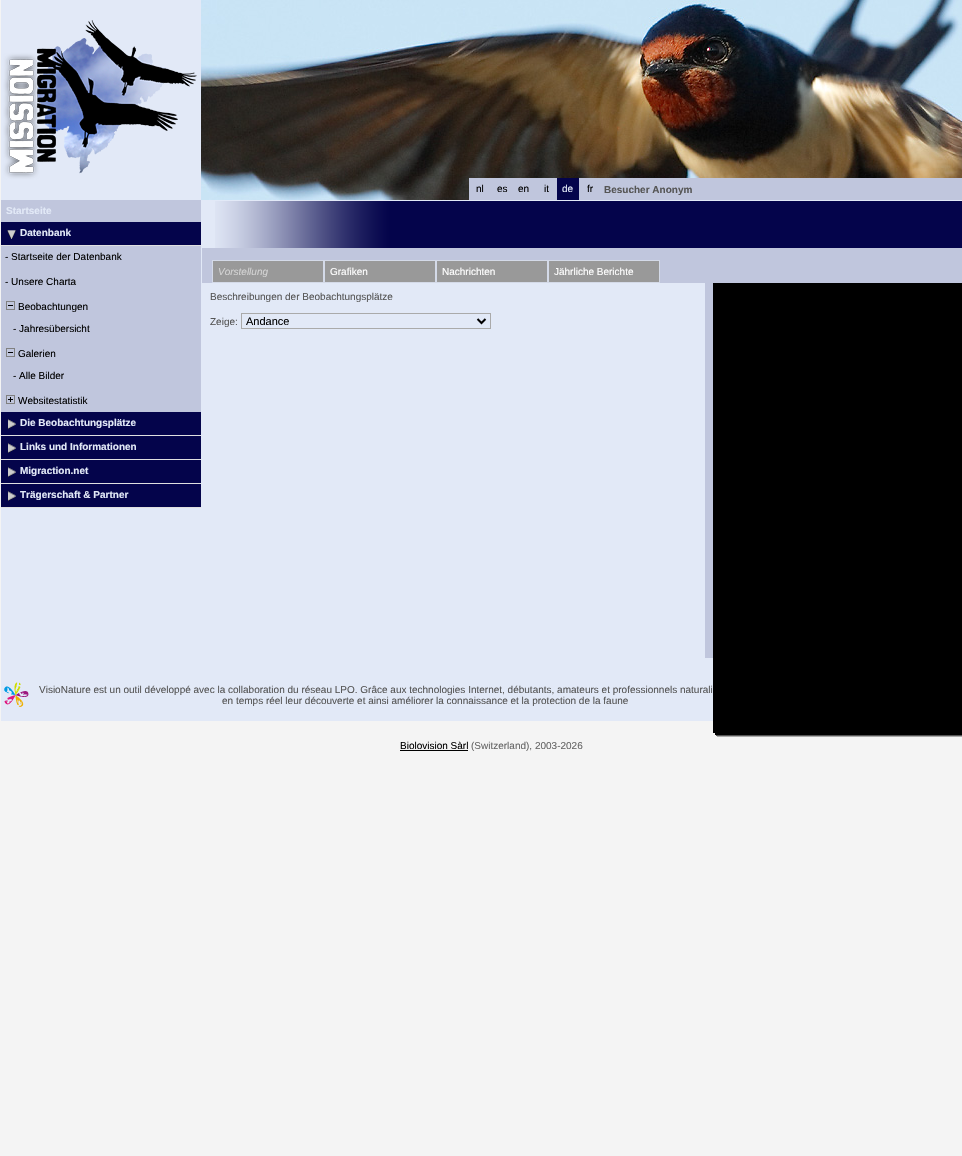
void draw(SkCanvas* canvas) {
    SkPaint paint;
    paint.setAntiAlias(true);
    canvas->clear(0xFFF4F4F4);
    canvas->drawImageRect(SkImages::DeferredFromEncodedData(SkData::MakeFromFileName("img1.png")), SkRect::MakeXYWH(1, 0, 200, 200), SkSamplingOptions());
    canvas->drawImageRect(SkImages::DeferredFromEncodedData(SkData::MakeFromFileName("img2.png")), SkRect::MakeXYWH(201, 0, 761, 200), SkSamplingOptions());
    paint.setColor(0xFFC0C6DD);
    canvas->drawRect(SkRect::MakeXYWH(469, 178, 88, 22), paint);
    SkFont font1(fontMgr->matchFamilyStyle("Liberation Sans", SkFontStyle::Normal()), 10);
    font1.setSubpixel(true);
    paint.setColor(0xFF000000);
    canvas->drawString("nl", 476, 192, font1, paint);
    canvas->drawString("es", 497, 192, font1, paint);
    canvas->drawString("en", 518, 192, font1, paint);
    canvas->drawString("it", 544, 192, font1, paint);
    paint.setColor(0xFF04044B);
    canvas->drawRect(SkRect::MakeXYWH(557, 178, 22, 22), paint);
    paint.setColor(0xFFE2E9F7);
    canvas->drawString("de", 562, 192, font1, paint);
    paint.setColor(0xFFC0C6DD);
    canvas->drawRect(SkRect::MakeXYWH(579, 178, 383, 22), paint);
    paint.setColor(0xFF000000);
    canvas->drawString("fr", 587, 192, font1, paint);
    SkFont font2(fontMgr->matchFamilyStyle("Liberation Sans", SkFontStyle::Bold()), 10);
    font2.setSubpixel(true);
    paint.setColor(0xFF555555);
    canvas->drawString("Besucher Anonym", 604, 193, font2, paint);
    paint.setColor(0xFFE2E9F7);
    canvas->drawRect(SkRect::MakeXYWH(1, 508, 200, 151), paint);
    paint.setColor(0xFFC0C6DD);
    canvas->drawRect(SkRect::MakeXYWH(1, 200, 200, 22), paint);
    paint.setColor(0xFFE2E9F7);
    canvas->drawString("Startseite", 6, 214, font2, paint);
    paint.setColor(0xFF04044B);
    canvas->drawRect(SkRect::MakeXYWH(1, 222, 200, 23), paint);
    paint.setColor(0xFFE0E0E0);
    canvas->drawRect(SkRect::MakeXYWH(1, 245, 200, 1), paint);
    canvas->drawImageRect(SkImages::DeferredFromEncodedData(SkData::MakeFromFileName("img3.png")), SkRect::MakeXYWH(7, 230, 9, 9), SkSamplingOptions());
    paint.setColor(0xFFE2E9F7);
    canvas->drawString("Datenbank", 20, 236, font2, paint);
    paint.setColor(0xFFC0C6DD);
    canvas->drawRect(SkRect::MakeXYWH(1, 246, 200, 166), paint);
    paint.setColor(0xFF000000);
    canvas->drawString("- Startseite der Datenbank", 5, 260, font1, paint);
    canvas->drawString("- Unsere Charta", 5, 285, font1, paint);
    canvas->drawImageRect(SkImages::DeferredFromEncodedData(SkData::MakeFromFileName("img4.png")), SkRect::MakeXYWH(6, 301, 9, 9), SkSamplingOptions());
    canvas->drawString("Beobachtungen", 18, 310, font1, paint);
    canvas->drawString("- Jahresübersicht", 13, 332, font1, paint);
    canvas->drawImageRect(SkImages::DeferredFromEncodedData(SkData::MakeFromFileName("img4.png")), SkRect::MakeXYWH(6, 348, 9, 9), SkSamplingOptions());
    canvas->drawString("Galerien", 18, 357, font1, paint);
    canvas->drawString("- Alle Bilder", 13, 379, font1, paint);
    canvas->drawImageRect(SkImages::DeferredFromEncodedData(SkData::MakeFromFileName("img5.png")), SkRect::MakeXYWH(6, 395, 9, 9), SkSamplingOptions());
    canvas->drawString("Websitestatistik", 18, 404, font1, paint);
    paint.setColor(0xFF04044B);
    canvas->drawRect(SkRect::MakeXYWH(1, 412, 200, 23), paint);
    paint.setColor(0xFFE0E0E0);
    canvas->drawRect(SkRect::MakeXYWH(1, 435, 200, 1), paint);
    canvas->drawImageRect(SkImages::DeferredFromEncodedData(SkData::MakeFromFileName("img6.png")), SkRect::MakeXYWH(8, 419, 8, 10), SkSamplingOptions());
    paint.setColor(0xFFE2E9F7);
    canvas->drawString("Die Beobachtungsplätze", 20, 426, font2, paint);
    paint.setColor(0xFF04044B);
    canvas->drawRect(SkRect::MakeXYWH(1, 436, 200, 23), paint);
    paint.setColor(0xFFE0E0E0);
    canvas->drawRect(SkRect::MakeXYWH(1, 459, 200, 1), paint);
    canvas->drawImageRect(SkImages::DeferredFromEncodedData(SkData::MakeFromFileName("img6.png")), SkRect::MakeXYWH(8, 443, 8, 10), SkSamplingOptions());
    paint.setColor(0xFFE2E9F7);
    canvas->drawString("Links und Informationen", 20, 450, font2, paint);
    paint.setColor(0xFF04044B);
    canvas->drawRect(SkRect::MakeXYWH(1, 460, 200, 23), paint);
    paint.setColor(0xFFE0E0E0);
    canvas->drawRect(SkRect::MakeXYWH(1, 483, 200, 1), paint);
    canvas->drawImageRect(SkImages::DeferredFromEncodedData(SkData::MakeFromFileName("img6.png")), SkRect::MakeXYWH(8, 467, 8, 10), SkSamplingOptions());
    paint.setColor(0xFFE2E9F7);
    canvas->drawString("Migraction.net", 20, 474, font2, paint);
    paint.setColor(0xFF04044B);
    canvas->drawRect(SkRect::MakeXYWH(1, 484, 200, 23), paint);
    paint.setColor(0xFFE0E0E0);
    canvas->drawRect(SkRect::MakeXYWH(1, 507, 200, 1), paint);
    canvas->drawImageRect(SkImages::DeferredFromEncodedData(SkData::MakeFromFileName("img6.png")), SkRect::MakeXYWH(8, 491, 8, 10), SkSamplingOptions());
    paint.setColor(0xFFE2E9F7);
    canvas->drawString("Trägerschaft & Partner", 20, 498, font2, paint);
    canvas->drawRect(SkRect::MakeXYWH(201, 200, 761, 459), paint);
    canvas->drawImageRect(SkImages::DeferredFromEncodedData(SkData::MakeFromFileName("img7.png")), SkRect::MakeXYWH(215, 201, 747, 47), SkSamplingOptions());
    paint.setColor(0xFFC0C6DD);
    canvas->drawRect(SkRect::MakeXYWH(202, 248, 760, 35), paint);
    paint.setColor(0xFF999999);
    canvas->drawRect(SkRect::MakeXYWH(212.5f, 260.5f, 111, 22), paint);
    paint.setStyle(SkPaint::kStroke_Style);
    paint.setStrokeWidth(1);
    paint.setColor(0xFFD4DAE8);
    canvas->drawRect(SkRect::MakeXYWH(212.5f, 260.5f, 111, 22), paint);
    SkFont font3(fontMgr->matchFamilyStyle("Liberation Sans", SkFontStyle::Italic()), 10);
    font3.setSubpixel(true);
    paint.setStyle(SkPaint::kFill_Style);
    paint.setColor(0xFFD3D3D3);
    canvas->drawString("Vorstellung", 218, 275, font3, paint);
    paint.setColor(0xFF999999);
    canvas->drawRect(SkRect::MakeXYWH(324.5f, 260.5f, 111, 22), paint);
    paint.setStyle(SkPaint::kStroke_Style);
    paint.setColor(0xFFD4DAE8);
    canvas->drawRect(SkRect::MakeXYWH(324.5f, 260.5f, 111, 22), paint);
    paint.setStyle(SkPaint::kFill_Style);
    paint.setColor(0xFFFFFFFF);
    canvas->drawString("Grafiken", 330, 275, font1, paint);
    paint.setColor(0xFF999999);
    canvas->drawRect(SkRect::MakeXYWH(436.5f, 260.5f, 111, 22), paint);
    paint.setStyle(SkPaint::kStroke_Style);
    paint.setColor(0xFFD4DAE8);
    canvas->drawRect(SkRect::MakeXYWH(436.5f, 260.5f, 111, 22), paint);
    paint.setStyle(SkPaint::kFill_Style);
    paint.setColor(0xFFFFFFFF);
    canvas->drawString("Nachrichten", 442, 275, font1, paint);
    paint.setColor(0xFF999999);
    canvas->drawRect(SkRect::MakeXYWH(548.5f, 260.5f, 111, 22), paint);
    paint.setStyle(SkPaint::kStroke_Style);
    paint.setColor(0xFFD4DAE8);
    canvas->drawRect(SkRect::MakeXYWH(548.5f, 260.5f, 111, 22), paint);
    paint.setStyle(SkPaint::kFill_Style);
    paint.setColor(0xFFFFFFFF);
    canvas->drawString("Jährliche Berichte", 554, 275, font1, paint);
    paint.setColor(0xFF555555);
    canvas->drawString("Beschreibungen der Beobachtungsplätze", 210, 300, font1, paint);
    canvas->drawString("Zeige:", 210, 325, font1, paint);
    paint.setStyle(SkPaint::kStroke_Style);
    paint.setColor(0xFFAAAAAA);
    canvas->drawRect(SkRect::MakeXYWH(241.5f, 313.5f, 249, 15), paint);
    paint.setStrokeWidth(2);
    paint.setColor(0xFF000000);
    canvas->drawPath(SkPathBuilder().moveTo(477.5f, 319).lineTo(481.5f, 323).lineTo(485.5f, 319).detach(), paint);
    SkFont font4(fontMgr->matchFamilyStyle("Liberation Sans", SkFontStyle::Normal()), 11);
    font4.setSubpixel(true);
    paint.setStyle(SkPaint::kFill_Style);
    canvas->drawString("Andance", 246, 325, font4, paint);
    paint.setColor(0xFFC0C6DD);
    canvas->drawRect(SkRect::MakeXYWH(705, 283, 8, 375), paint);
    paint.setColor(0xFFAAAAAA);
    canvas->drawRect(SkRect::MakeXYWH(717, 736, 245, 1), paint);
    paint.setColor(0xFF555555);
    canvas->drawRect(SkRect::MakeXYWH(716, 735, 246, 1), paint);
    paint.setColor(0xFF000000);
    canvas->drawRect(SkRect::MakeXYWH(715, 733, 247, 2), paint);
    canvas->drawRect(SkRect::MakeXYWH(713, 283, 249, 450), paint);
    paint.setColor(0xFFE2E9F7);
    canvas->drawRect(SkRect::MakeXYWH(1, 659, 712, 62), paint);
    canvas->drawImageRect(SkImages::DeferredFromEncodedData(SkData::MakeFromFileName("img8.png")), SkRect::MakeXYWH(4, 682, 25, 25), SkSamplingOptions());
    paint.setColor(0xFF555555);
    canvas->drawString("VisioNature est un outil développé avec la collaboration du réseau LPO. Grâce aux technologies Internet, débutants, amateurs et professionnels naturali", 39, 693, font1, paint);
    canvas->drawString("en temps réel leur découverte et ainsi améliorer la connaissance et la protection de la faune", 222, 704, font1, paint);
    paint.setColor(0xFF000000);
    canvas->drawString("Biolovision Sàrl", 400, 749, font1, paint);
    canvas->drawRect(SkRect::MakeXYWH(400, 750, 68, 1), paint);
    paint.setColor(0xFF666666);
    canvas->drawString("(Switzerland), 2003-2026", 471, 749, font1, paint);
}
